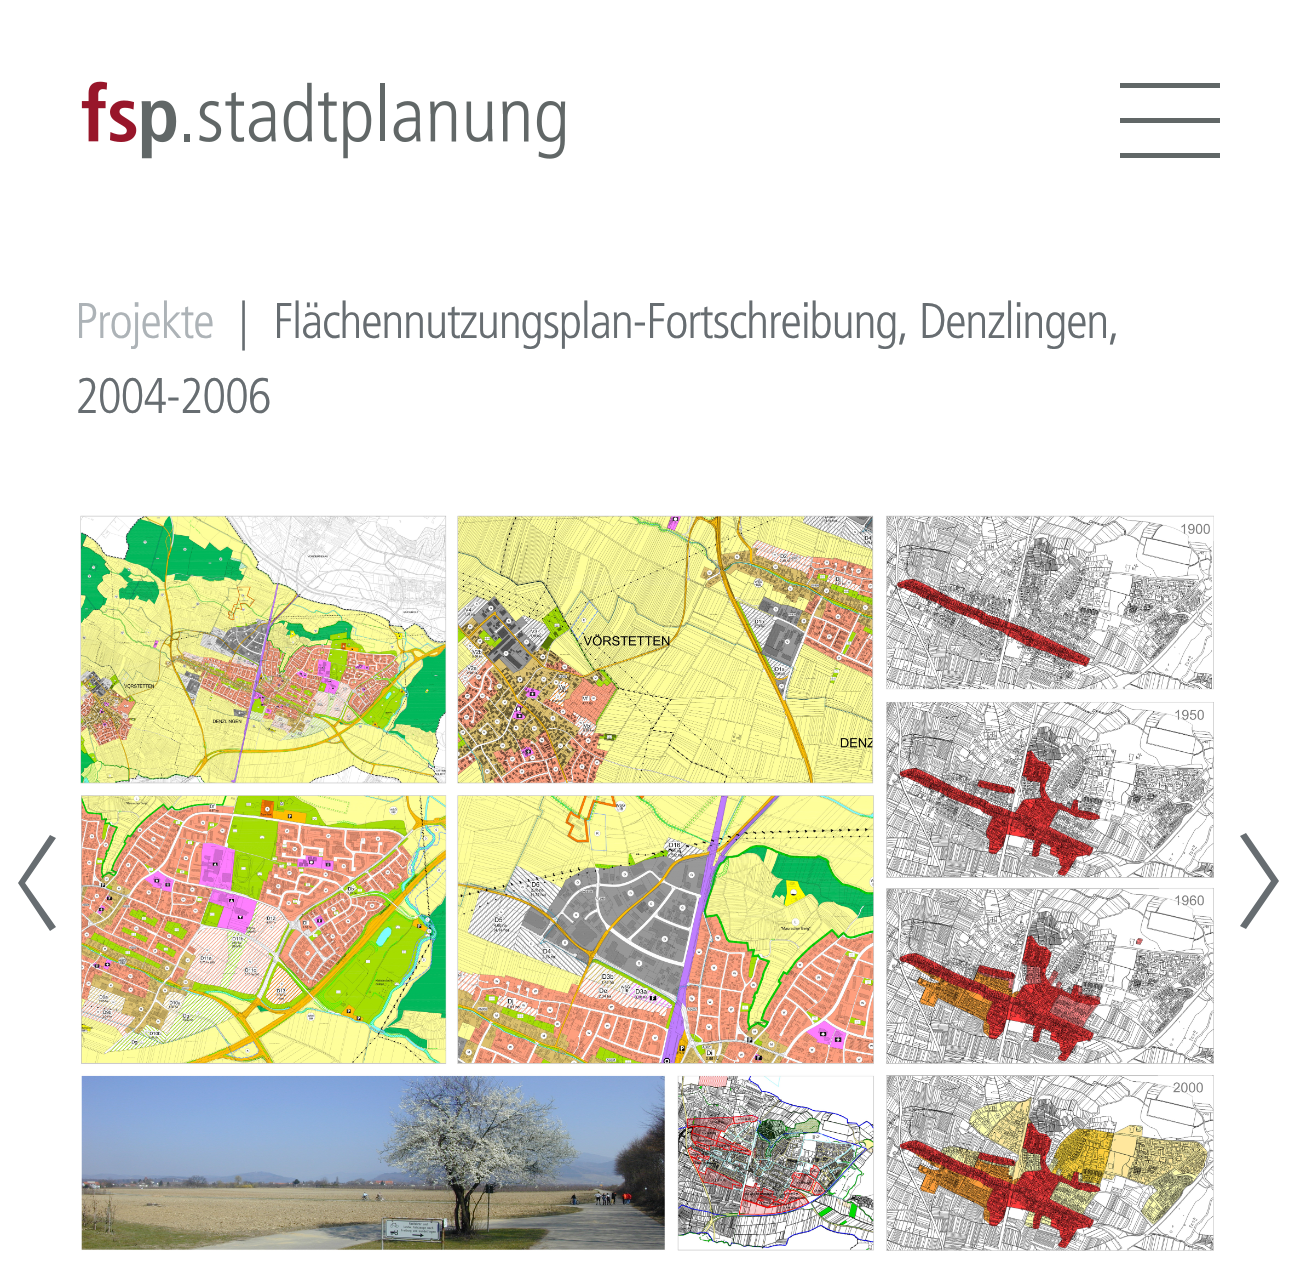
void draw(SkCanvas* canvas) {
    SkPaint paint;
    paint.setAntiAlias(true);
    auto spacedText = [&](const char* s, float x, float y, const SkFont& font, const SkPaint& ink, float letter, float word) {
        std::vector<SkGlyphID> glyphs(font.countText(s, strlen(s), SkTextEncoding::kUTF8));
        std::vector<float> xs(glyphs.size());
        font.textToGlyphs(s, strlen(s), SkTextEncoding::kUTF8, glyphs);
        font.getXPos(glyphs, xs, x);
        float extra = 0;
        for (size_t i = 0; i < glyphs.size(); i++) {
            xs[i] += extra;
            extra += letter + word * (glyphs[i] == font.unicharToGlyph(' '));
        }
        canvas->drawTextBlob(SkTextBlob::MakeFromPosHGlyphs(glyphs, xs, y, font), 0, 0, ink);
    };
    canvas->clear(0xFFFFFFFF);
    paint.setColor(0xFF616767);
    canvas->drawRect(SkRect::MakeXYWH(1120, 83, 100, 5), paint);
    canvas->drawRect(SkRect::MakeXYWH(1120, 118, 100, 5), paint);
    canvas->drawRect(SkRect::MakeXYWH(1120, 153, 100, 5), paint);
    canvas->drawImageRect(SkImages::DeferredFromEncodedData(SkData::MakeFromFileName("img1.png")), SkRect::MakeXYWH(81, 81, 485, 78), SkSamplingOptions());
    SkFont font1(fontMgr->matchFamilyStyle("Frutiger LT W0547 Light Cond", SkFontStyle(300, SkFontStyle::kNormal_Width, SkFontStyle::kUpright_Slant)), 50);
    font1.setSubpixel(true);
    paint.setColor(0xFFADB3B7);
    spacedText("Projekte", 75, 338, font1, paint, -1.25f, 0);
    paint.setColor(0xFF676D71);
    spacedText("|", 238, 338, font1, paint, -1.25f, 0);
    spacedText("Flächennutzungsplan-Fortschreibung, Denzlingen,", 273, 338, font1, paint, -1.25f, 0);
    spacedText("2004-2006", 75, 413, font1, paint, -1.25f, 0);
    canvas->drawImageRect(SkImages::DeferredFromEncodedData(SkData::MakeFromFileName("img2.png")), SkRect::MakeXYWH(80, 515, 1134, 736), SkSamplingOptions());
    canvas->drawPath(SkPathBuilder().moveTo(50, 931).lineTo(56, 927).lineTo(25, 883).lineTo(56, 838).lineTo(50, 835).lineTo(18, 883).close().detach(), paint);
    canvas->drawPath(SkPathBuilder().moveTo(1246, 833).lineTo(1240, 836).lineTo(1271, 881).lineTo(1240, 926).lineTo(1246, 929).lineTo(1279, 881).close().detach(), paint);
}
